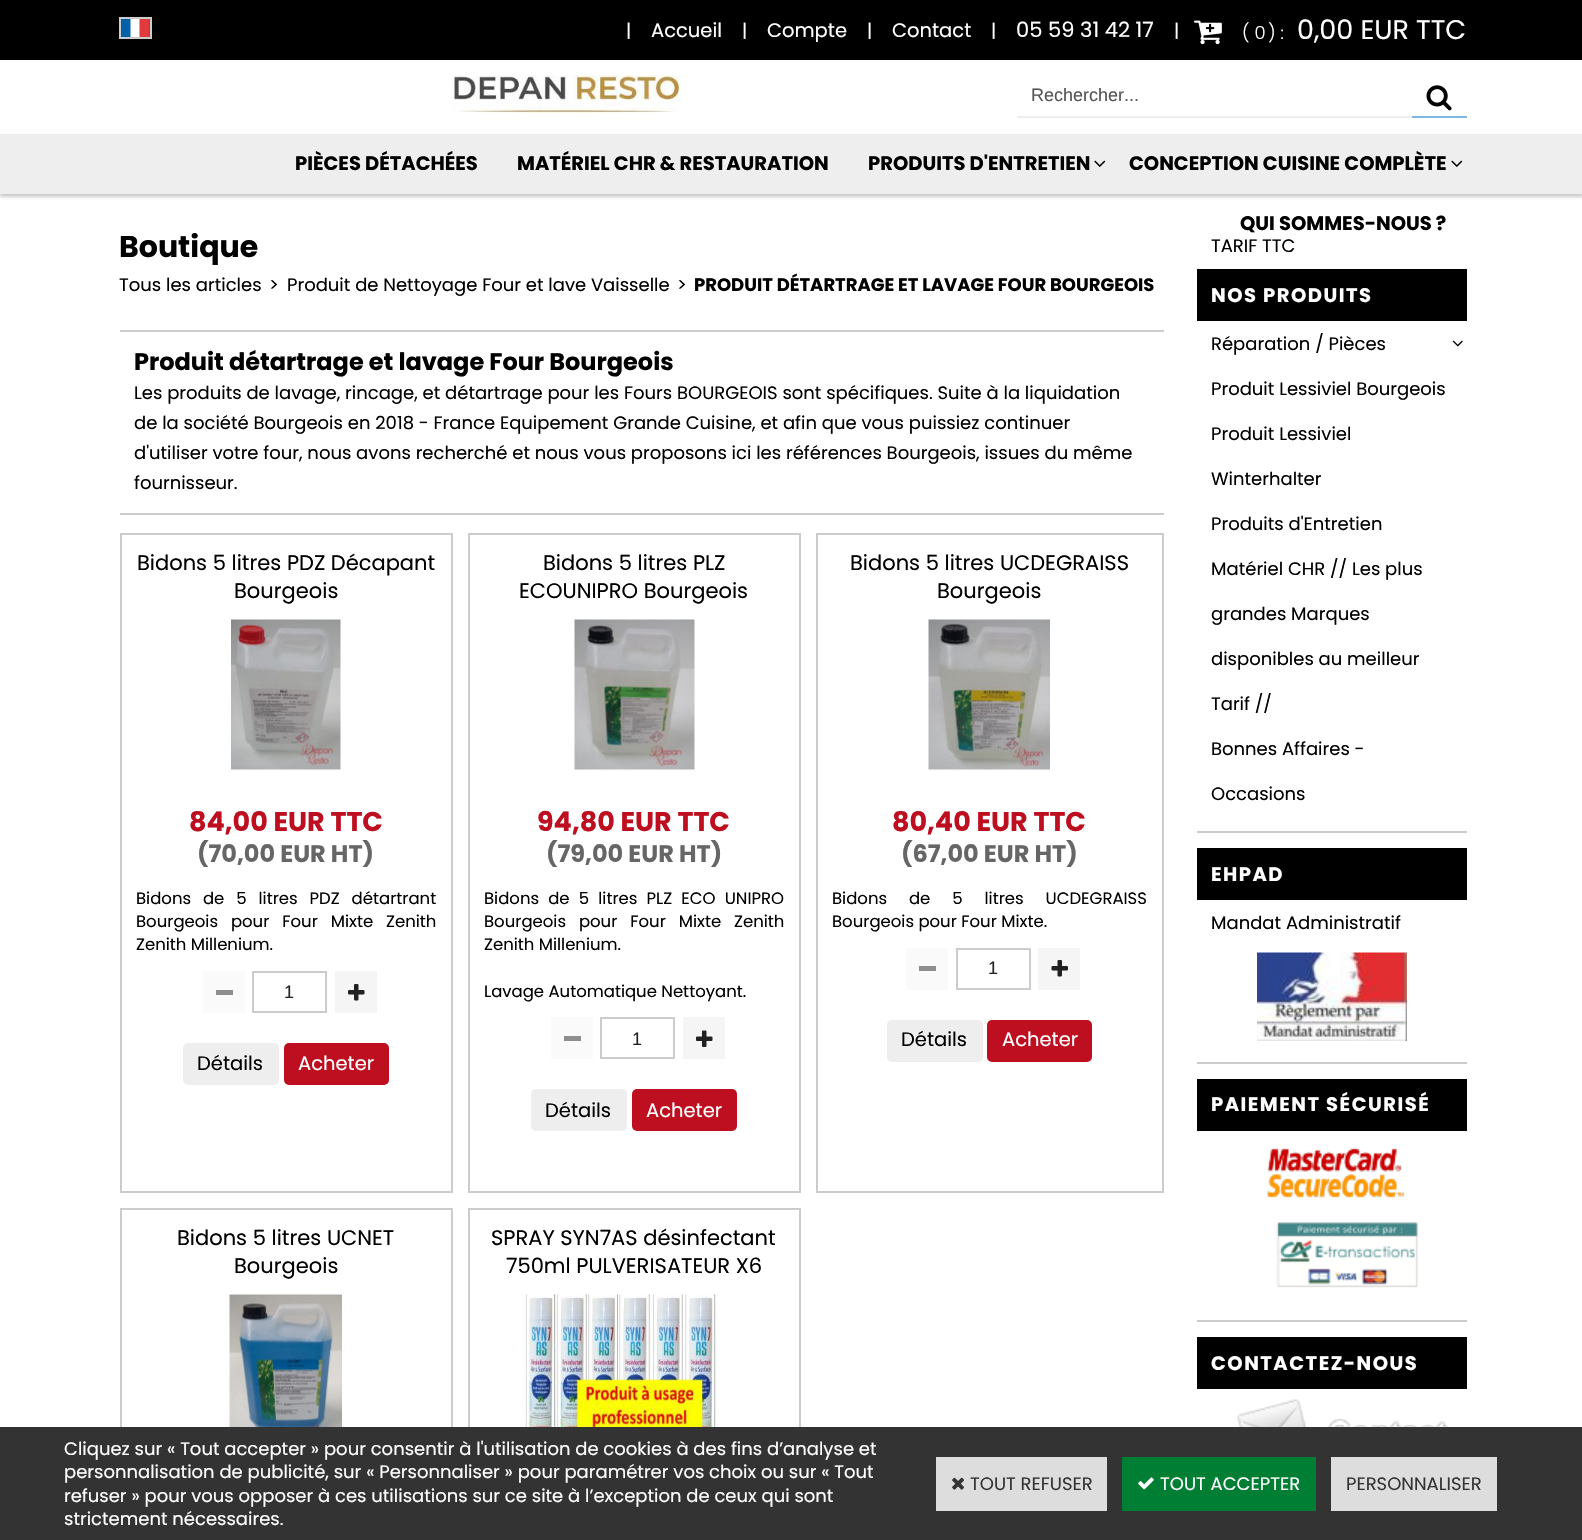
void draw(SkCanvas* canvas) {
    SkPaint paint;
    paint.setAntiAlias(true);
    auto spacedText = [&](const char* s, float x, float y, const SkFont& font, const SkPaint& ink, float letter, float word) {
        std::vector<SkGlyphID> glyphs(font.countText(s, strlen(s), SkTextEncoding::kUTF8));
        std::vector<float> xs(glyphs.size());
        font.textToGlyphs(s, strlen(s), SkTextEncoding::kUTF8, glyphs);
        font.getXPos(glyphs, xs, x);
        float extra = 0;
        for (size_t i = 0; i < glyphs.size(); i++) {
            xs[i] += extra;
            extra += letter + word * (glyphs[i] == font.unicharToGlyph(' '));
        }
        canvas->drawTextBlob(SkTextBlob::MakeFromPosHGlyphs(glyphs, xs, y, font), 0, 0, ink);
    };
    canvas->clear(0xFFFFFFFF);
    paint.setColor(0xFF000000);
    canvas->drawRect(SkRect::MakeXYWH(0, 0, 1582, 60), paint);
    canvas->drawImageRect(SkImages::DeferredFromEncodedData(SkData::MakeFromFileName("img1.png")), SkRect::MakeXYWH(121, 19, 29, 18), SkSamplingOptions());
    paint.setStyle(SkPaint::kStroke_Style);
    paint.setStrokeWidth(2);
    paint.setColor(0xFFCCCCCC);
    canvas->drawRect(SkRect::MakeXYWH(120, 18, 31, 20), paint);
    SkFont font1(fontMgr->matchFamilyStyle("Poppins", SkFontStyle::Normal()), 18);
    font1.setSubpixel(true);
    paint.setStyle(SkPaint::kFill_Style);
    paint.setColor(0xFFFFFFFF);
    canvas->drawString("|", 626, 37, font1, paint);
    SkFont font2(fontMgr->matchFamilyStyle("Poppins", SkFontStyle::Normal()), 19.5f);
    font2.setSubpixel(true);
    canvas->drawString("Accueil", 651, 37, font2, paint);
    canvas->drawString("|", 742, 37, font1, paint);
    canvas->drawString("Compte", 767, 37, font2, paint);
    canvas->drawString("|", 867, 37, font1, paint);
    canvas->drawString("Contact", 892, 37, font2, paint);
    canvas->drawString("|", 991, 37, font1, paint);
    SkFont font3(fontMgr->matchFamilyStyle("Poppins", SkFontStyle::Normal()), 21);
    font3.setSubpixel(true);
    canvas->drawString("05 59 31 42 17", 1016, 37, font3, paint);
    canvas->drawString("|", 1174, 37, font1, paint);
    canvas->drawImageRect(SkImages::DeferredFromEncodedData(SkData::MakeFromFileName("img2.png")), SkRect::MakeXYWH(1194, 20, 28, 25), SkSamplingOptions());
    SkFont font4(fontMgr->matchFamilyStyle("Poppins", SkFontStyle(300, SkFontStyle::kNormal_Width, SkFontStyle::kUpright_Slant)), 18);
    font4.setSubpixel(true);
    canvas->drawString("( 0", 1242, 39, font4, paint);
    canvas->drawString(") :", 1268, 39, font4, paint);
    SkFont font5(fontMgr->matchFamilyStyle("Poppins", SkFontStyle::Normal()), 27);
    font5.setSubpixel(true);
    canvas->drawString("0,00 EUR TTC", 1297, 39, font5, paint);
    canvas->drawImageRect(SkImages::DeferredFromEncodedData(SkData::MakeFromFileName("img3.png")), SkRect::MakeXYWH(451, 75, 230, 38), SkSamplingOptions());
    paint.setColor(0xFFEEEEEE);
    canvas->drawRect(SkRect::MakeXYWH(1017, 116, 395, 2), paint);
    SkFont font6(fontMgr->matchFamilyStyle("Liberation Sans", SkFontStyle::Normal()), 18);
    font6.setSubpixel(true);
    paint.setColor(0xFF555555);
    canvas->drawString("Rechercher...", 1031, 101, font6, paint);
    paint.setColor(0xFF7FB7E4);
    canvas->drawRect(SkRect::MakeXYWH(1412, 116, 55, 2), paint);
    canvas->drawImageRect(SkImages::DeferredFromEncodedData(SkData::MakeFromFileName("img4.png")), SkRect::MakeXYWH(1426, 85, 26, 26), SkSamplingOptions());
    paint.setColor(0x33000000);
    paint.setMaskFilter(SkMaskFilter::MakeBlur(kNormal_SkBlurStyle, 1.5f));
    canvas->drawRect(SkRect::MakeXYWH(0, 137, 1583, 60), paint);
    paint.setMaskFilter(nullptr);
    paint.setColor(0xFFEEEEEE);
    canvas->drawRect(SkRect::MakeXYWH(0, 134, 1582, 60), paint);
    SkFont font7(fontMgr->matchFamilyStyle("Poppins", SkFontStyle::Bold()), 19.5f);
    font7.setSubpixel(true);
    paint.setColor(0xFF000000);
    canvas->drawString("PIÈCES DÉTACHÉES", 295, 170, font7, paint);
    canvas->drawString("MATÉRIEL CHR & RESTAURATION", 517, 170, font7, paint);
    canvas->drawString("PRODUITS D'ENTRETIEN", 868, 170, font7, paint);
    canvas->drawImageRect(SkImages::DeferredFromEncodedData(SkData::MakeFromFileName("img5.png")), SkRect::MakeXYWH(1094, 160, 12, 7), SkSamplingOptions());
    canvas->drawString("CONCEPTION CUISINE COMPLÈTE", 1129, 170, font7, paint);
    canvas->drawImageRect(SkImages::DeferredFromEncodedData(SkData::MakeFromFileName("img5.png")), SkRect::MakeXYWH(1451, 160, 12, 7), SkSamplingOptions());
    canvas->drawString("QUI SOMMES-NOUS ?", 1240, 230, font7, paint);
    SkFont font8(fontMgr->matchFamilyStyle("Poppins", SkFontStyle::Bold()), 30);
    font8.setSubpixel(true);
    canvas->drawString("Boutique", 119, 257, font8, paint);
    canvas->drawString("Tous les articles", 119, 291, font1, paint);
    canvas->drawString(">", 269, 291, font1, paint);
    canvas->drawString("Produit de Nettoyage Four et lave Vaisselle", 287, 291, font1, paint);
    canvas->drawString(">", 677, 291, font1, paint);
    SkFont font9(fontMgr->matchFamilyStyle("Poppins", SkFontStyle::Bold()), 18);
    font9.setSubpixel(true);
    canvas->drawString("PRODUIT DÉTARTRAGE ET LAVAGE FOUR BOURGEOIS", 694, 291, font9, paint);
    paint.setColor(0xFFCCCCCC);
    canvas->drawRect(SkRect::MakeXYWH(120, 330, 1044, 2), paint);
    canvas->drawRect(SkRect::MakeXYWH(120, 513, 1044, 2), paint);
    SkFont font10(fontMgr->matchFamilyStyle("Poppins", SkFontStyle::Bold()), 24);
    font10.setSubpixel(true);
    paint.setColor(0xFF000000);
    canvas->drawString("Produit détartrage et lavage Four Bourgeois", 134, 370, font10, paint);
    canvas->drawString("Les produits de lavage, rincage, et détartrage pour les Fours BOURGEOIS sont spécifiques. Suite à la liquidation", 134, 399, font1, paint);
    canvas->drawString("de la société Bourgeois en 2018 - France Equipement Grande Cuisine, et afin que vous puissiez continuer", 134, 429, font1, paint);
    canvas->drawString("d'utiliser votre four, nous avons recherché et nous vous proposons ici les références Bourgeois, issues du même", 134, 459, font1, paint);
    canvas->drawString("fournisseur.", 134, 489, font1, paint);
    paint.setStyle(SkPaint::kStroke_Style);
    paint.setColor(0xFFCCCCCC);
    canvas->drawRect(SkRect::MakeXYWH(121, 534, 331, 658), paint);
    paint.setStyle(SkPaint::kFill_Style);
    paint.setColor(0xFF000000);
    canvas->drawString("Bidons 5 litres PDZ Décapant", 137, 570, font3, paint);
    canvas->drawString("Bourgeois", 234, 598, font3, paint);
    canvas->drawImageRect(SkImages::DeferredFromEncodedData(SkData::MakeFromFileName("img6.png")), SkRect::MakeXYWH(231, 619, 110, 151), SkSamplingOptions());
    SkFont font11(fontMgr->matchFamilyStyle("Poppins", SkFontStyle::Bold()), 27);
    font11.setSubpixel(true);
    paint.setColor(0xFFBD0F1F);
    canvas->drawString("84,00 EUR TTC", 189, 831, font11, paint);
    paint.setColor(0xFF666666);
    canvas->drawString("(70,00 EUR HT)", 197, 862, font10, paint);
    SkFont font12(fontMgr->matchFamilyStyle("Poppins", SkFontStyle::Normal()), 16.5f);
    font12.setSubpixel(true);
    paint.setColor(0xFF000000);
    spacedText("Bidons de 5 litres PDZ détartrant", 136, 904, font12, paint, 0, 7.5f);
    spacedText("Bourgeois pour Four Mixte Zenith", 136, 927, font12, paint, 0, 8.5f);
    canvas->drawString("Zenith Millenium.", 136, 950, font12, paint);
    paint.setColor(0xFFFAFAFA);
    canvas->drawRect(SkRect::MakeXYWH(203, 971, 42, 42), paint);
    paint.setColor(0xFF8E8E8E);
    canvas->drawRect(SkRect::MakeXYWH(216, 990, 17, 5), paint);
    paint.setStyle(SkPaint::kStroke_Style);
    paint.setColor(0xFFCCCCCC);
    canvas->drawRect(SkRect::MakeXYWH(253, 972, 73, 40), paint);
    paint.setStyle(SkPaint::kFill_Style);
    paint.setColor(0xFF212121);
    canvas->drawString("1", 284, 998, font6, paint);
    paint.setColor(0xFFF5F5F5);
    canvas->drawRect(SkRect::MakeXYWH(335, 971, 42, 42), paint);
    canvas->drawImageRect(SkImages::DeferredFromEncodedData(SkData::MakeFromFileName("img7.png")), SkRect::MakeXYWH(348, 984, 17, 17), SkSamplingOptions());
    paint.setColor(0xFFEEEEEE);
    canvas->drawRoundRect(SkRect::MakeXYWH(183, 1043, 96, 42), 5, 5, paint);
    paint.setColor(0xFF000000);
    canvas->drawString("Détails", 197, 1070, font2, paint);
    paint.setColor(0xFFBD0F1F);
    canvas->drawRoundRect(SkRect::MakeXYWH(284, 1043, 105, 42), 5, 5, paint);
    paint.setColor(0xFFFFFFFF);
    canvas->drawString("Acheter", 298, 1070, font2, paint);
    paint.setStyle(SkPaint::kStroke_Style);
    paint.setColor(0xFFCCCCCC);
    canvas->drawRect(SkRect::MakeXYWH(469, 534, 331, 658), paint);
    paint.setStyle(SkPaint::kFill_Style);
    paint.setColor(0xFF000000);
    canvas->drawString("Bidons 5 litres PLZ", 543, 570, font3, paint);
    canvas->drawString("ECOUNIPRO Bourgeois", 519, 598, font3, paint);
    canvas->drawImageRect(SkImages::DeferredFromEncodedData(SkData::MakeFromFileName("img8.png")), SkRect::MakeXYWH(574, 619, 121, 151), SkSamplingOptions());
    paint.setColor(0xFFBD0F1F);
    canvas->drawString("94,80 EUR TTC", 537, 831, font11, paint);
    paint.setColor(0xFF666666);
    canvas->drawString("(79,00 EUR HT)", 546, 862, font10, paint);
    paint.setColor(0xFF000000);
    spacedText("Bidons de 5 litres PLZ ECO UNIPRO", 484, 904, font12, paint, 0, 4.75f);
    spacedText("Bourgeois pour Four Mixte Zenith", 484, 927, font12, paint, 0, 8.5f);
    canvas->drawString("Zenith Millenium.", 484, 950, font12, paint);
    canvas->drawString("Lavage Automatique Nettoyant.", 484, 997, font12, paint);
    paint.setColor(0xFFFAFAFA);
    canvas->drawRect(SkRect::MakeXYWH(551, 1017, 42, 42), paint);
    paint.setColor(0xFF8E8E8E);
    canvas->drawRect(SkRect::MakeXYWH(564, 1036, 17, 5), paint);
    paint.setStyle(SkPaint::kStroke_Style);
    paint.setColor(0xFFCCCCCC);
    canvas->drawRect(SkRect::MakeXYWH(601, 1018, 73, 40), paint);
    paint.setStyle(SkPaint::kFill_Style);
    paint.setColor(0xFF212121);
    canvas->drawString("1", 632, 1045, font6, paint);
    paint.setColor(0xFFF5F5F5);
    canvas->drawRect(SkRect::MakeXYWH(683, 1017, 42, 42), paint);
    canvas->drawImageRect(SkImages::DeferredFromEncodedData(SkData::MakeFromFileName("img9.png")), SkRect::MakeXYWH(696, 1030, 17, 17), SkSamplingOptions());
    paint.setColor(0xFFEEEEEE);
    canvas->drawRoundRect(SkRect::MakeXYWH(531, 1089, 96, 42), 5, 5, paint);
    paint.setColor(0xFF000000);
    canvas->drawString("Détails", 545, 1117, font2, paint);
    paint.setColor(0xFFBD0F1F);
    canvas->drawRoundRect(SkRect::MakeXYWH(632, 1089, 105, 42), 5, 5, paint);
    paint.setColor(0xFFFFFFFF);
    canvas->drawString("Acheter", 646, 1117, font2, paint);
    paint.setStyle(SkPaint::kStroke_Style);
    paint.setColor(0xFFCCCCCC);
    canvas->drawRect(SkRect::MakeXYWH(817, 534, 346, 658), paint);
    paint.setStyle(SkPaint::kFill_Style);
    paint.setColor(0xFF000000);
    canvas->drawString("Bidons 5 litres UCDEGRAISS", 850, 570, font3, paint);
    canvas->drawString("Bourgeois", 937, 598, font3, paint);
    canvas->drawImageRect(SkImages::DeferredFromEncodedData(SkData::MakeFromFileName("img10.png")), SkRect::MakeXYWH(928, 619, 122, 151), SkSamplingOptions());
    paint.setColor(0xFFBD0F1F);
    canvas->drawString("80,40 EUR TTC", 892, 831, font11, paint);
    paint.setColor(0xFF666666);
    canvas->drawString("(67,00 EUR HT)", 901, 862, font10, paint);
    paint.setColor(0xFF000000);
    spacedText("Bidons de 5 litres UCDEGRAISS", 832, 904, font12, paint, 0, 17.5f);
    canvas->drawString("Bourgeois pour Four Mixte.", 832, 927, font12, paint);
    paint.setColor(0xFFFAFAFA);
    canvas->drawRect(SkRect::MakeXYWH(906, 948, 42, 42), paint);
    paint.setColor(0xFF8E8E8E);
    canvas->drawRect(SkRect::MakeXYWH(919, 966, 17, 5), paint);
    paint.setStyle(SkPaint::kStroke_Style);
    paint.setColor(0xFFCCCCCC);
    canvas->drawRect(SkRect::MakeXYWH(957, 949, 73, 40), paint);
    paint.setStyle(SkPaint::kFill_Style);
    paint.setColor(0xFF212121);
    canvas->drawString("1", 988, 974, font6, paint);
    paint.setColor(0xFFF5F5F5);
    canvas->drawRect(SkRect::MakeXYWH(1038, 948, 42, 42), paint);
    canvas->drawImageRect(SkImages::DeferredFromEncodedData(SkData::MakeFromFileName("img11.png")), SkRect::MakeXYWH(1051, 960, 17, 17), SkSamplingOptions());
    paint.setColor(0xFFEEEEEE);
    canvas->drawRoundRect(SkRect::MakeXYWH(887, 1020, 96, 42), 5, 5, paint);
    paint.setColor(0xFF000000);
    canvas->drawString("Détails", 901, 1046, font2, paint);
    paint.setColor(0xFFBD0F1F);
    canvas->drawRoundRect(SkRect::MakeXYWH(987, 1020, 105, 42), 5, 5, paint);
    paint.setColor(0xFFFFFFFF);
    canvas->drawString("Acheter", 1002, 1046, font2, paint);
    paint.setStyle(SkPaint::kStroke_Style);
    paint.setColor(0xFFCCCCCC);
    canvas->drawRect(SkRect::MakeXYWH(121, 1209, 331, 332), paint);
    paint.setStyle(SkPaint::kFill_Style);
    paint.setColor(0xFF000000);
    canvas->drawString("Bidons 5 litres UCNET", 177, 1245, font3, paint);
    canvas->drawString("Bourgeois", 234, 1273, font3, paint);
    canvas->drawImageRect(SkImages::DeferredFromEncodedData(SkData::MakeFromFileName("img12.png")), SkRect::MakeXYWH(229, 1294, 113, 133), SkSamplingOptions());
    paint.setStyle(SkPaint::kStroke_Style);
    paint.setColor(0xFFCCCCCC);
    canvas->drawRect(SkRect::MakeXYWH(469, 1209, 331, 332), paint);
    paint.setStyle(SkPaint::kFill_Style);
    paint.setColor(0xFF000000);
    canvas->drawString("SPRAY SYN7AS désinfectant", 491, 1245, font3, paint);
    canvas->drawString("750ml PULVERISATEUR X6", 506, 1273, font3, paint);
    canvas->drawImageRect(SkImages::DeferredFromEncodedData(SkData::MakeFromFileName("img13.png")), SkRect::MakeXYWH(522, 1294, 194, 133), SkSamplingOptions());
    canvas->drawString("TARIF TTC", 1211, 252, font1, paint);
    canvas->drawRect(SkRect::MakeXYWH(1197, 269, 270, 52), paint);
    paint.setColor(0xFFFFFFFF);
    spacedText("NOS PRODUITS", 1211, 302, font7, paint, 1.5f, 0);
    paint.setColor(0xFF000000);
    canvas->drawString("Réparation / Pièces", 1211, 350, font1, paint);
    canvas->drawImageRect(SkImages::DeferredFromEncodedData(SkData::MakeFromFileName("img14.png")), SkRect::MakeXYWH(1452, 340, 11, 7), SkSamplingOptions());
    canvas->drawString("Produit Lessiviel Bourgeois", 1211, 395, font1, paint);
    canvas->drawString("Produit Lessiviel", 1211, 440, font1, paint);
    canvas->drawString("Winterhalter", 1211, 485, font1, paint);
    canvas->drawString("Produits d'Entretien", 1211, 530, font1, paint);
    canvas->drawString("Matériel CHR // Les plus", 1211, 575, font1, paint);
    canvas->drawString("grandes Marques", 1211, 620, font1, paint);
    canvas->drawString("disponibles au meilleur", 1211, 665, font1, paint);
    canvas->drawString("Tarif //", 1211, 710, font1, paint);
    canvas->drawString("Bonnes Affaires -", 1211, 755, font1, paint);
    canvas->drawString("Occasions", 1211, 800, font1, paint);
    paint.setColor(0xFFCCCCCC);
    canvas->drawRect(SkRect::MakeXYWH(1197, 831, 270, 2), paint);
    paint.setColor(0xFF000000);
    canvas->drawRect(SkRect::MakeXYWH(1197, 848, 270, 52), paint);
    paint.setColor(0xFFFFFFFF);
    spacedText("EHPAD", 1211, 881, font7, paint, 1.5f, 0);
    paint.setColor(0xFF000000);
    canvas->drawString("Mandat Administratif", 1211, 929, font1, paint);
    canvas->drawImageRect(SkImages::DeferredFromEncodedData(SkData::MakeFromFileName("img15.png")), SkRect::MakeXYWH(1257, 952, 150, 89), SkSamplingOptions());
    paint.setColor(0xFFCCCCCC);
    canvas->drawRect(SkRect::MakeXYWH(1197, 1062, 270, 2), paint);
    paint.setColor(0xFF000000);
    canvas->drawRect(SkRect::MakeXYWH(1197, 1079, 270, 52), paint);
    paint.setColor(0xFFFFFFFF);
    spacedText("PAIEMENT SÉCURISÉ", 1211, 1111, font7, paint, 1.5f, 0);
    canvas->drawImageRect(SkImages::DeferredFromEncodedData(SkData::MakeFromFileName("img16.png")), SkRect::MakeXYWH(1267, 1148, 138, 50), SkSamplingOptions());
    canvas->drawImageRect(SkImages::DeferredFromEncodedData(SkData::MakeFromFileName("img17.png")), SkRect::MakeXYWH(1276, 1222, 142, 66), SkSamplingOptions());
    paint.setColor(0xFFCCCCCC);
    canvas->drawRect(SkRect::MakeXYWH(1197, 1320, 270, 2), paint);
    paint.setColor(0xFF000000);
    canvas->drawRect(SkRect::MakeXYWH(1197, 1337, 270, 52), paint);
    paint.setColor(0xFFFFFFFF);
    spacedText("CONTACTEZ-NOUS", 1211, 1370, font7, paint, 1.5f, 0);
    canvas->drawImageRect(SkImages::DeferredFromEncodedData(SkData::MakeFromFileName("img18.png")), SkRect::MakeXYWH(1237, 1399, 211, 28), SkSamplingOptions());
    paint.setColor(0xFF333333);
    canvas->drawRect(SkRect::MakeXYWH(0, 1427, 1582, 113), paint);
    paint.setColor(0xFFFFFFFF);
    canvas->drawString("Cliquez sur « Tout accepter » pour consentir à l'utilisation de cookies à des fins d’analyse et", 64, 1455, font1, paint);
    canvas->drawString("personnalisation de publicité, sur « Personnaliser » pour paramétrer vos choix ou sur « Tout", 64, 1478, font1, paint);
    canvas->drawString("refuser » pour vous opposer à ces utilisations sur ce site à l’exception de ceux qui sont", 64, 1502, font1, paint);
    canvas->drawString("strictement nécessaires.", 64, 1525, font1, paint);
    paint.setColor(0xFFDDDDDD);
    canvas->drawRect(SkRect::MakeXYWH(936, 1457, 171, 54), paint);
    canvas->drawImageRect(SkImages::DeferredFromEncodedData(SkData::MakeFromFileName("img19.png")), SkRect::MakeXYWH(952, 1477, 12, 13), SkSamplingOptions());
    paint.setColor(0xFF333333);
    canvas->drawString("TOUT REFUSER", 970, 1490, font1, paint);
    paint.setColor(0xFF007E33);
    canvas->drawRect(SkRect::MakeXYWH(1122, 1457, 194, 54), paint);
    canvas->drawImageRect(SkImages::DeferredFromEncodedData(SkData::MakeFromFileName("img20.png")), SkRect::MakeXYWH(1138, 1477, 16, 13), SkSamplingOptions());
    paint.setColor(0xFFFFFFFF);
    canvas->drawString("TOUT ACCEPTER", 1160, 1490, font1, paint);
    paint.setColor(0xFFDDDDDD);
    canvas->drawRect(SkRect::MakeXYWH(1331, 1457, 166, 54), paint);
    paint.setColor(0xFF333333);
    canvas->drawString("PERSONNALISER", 1346, 1490, font1, paint);
}
